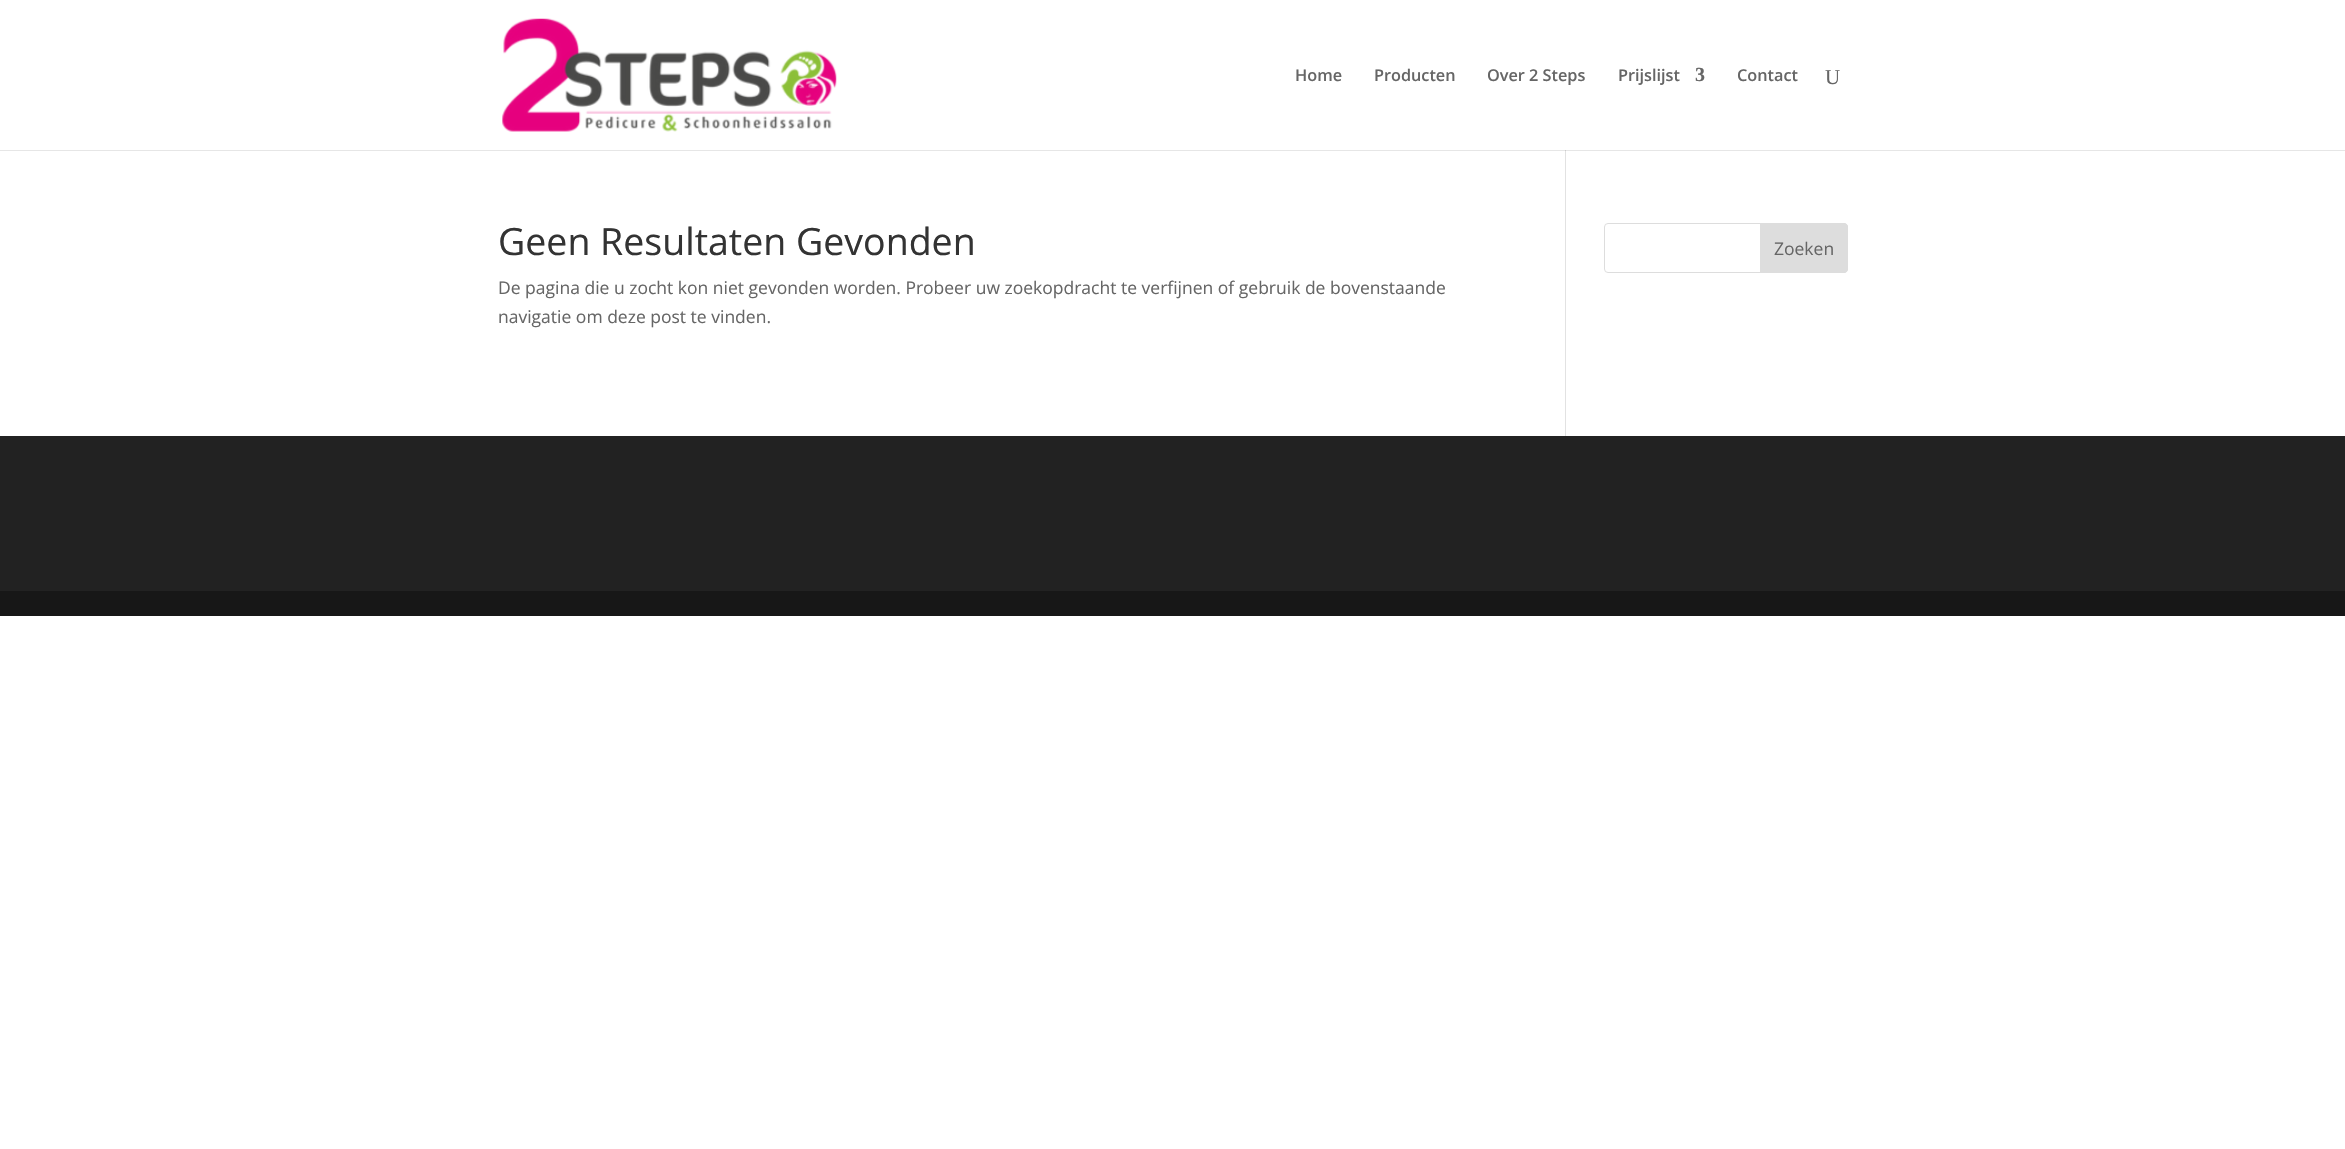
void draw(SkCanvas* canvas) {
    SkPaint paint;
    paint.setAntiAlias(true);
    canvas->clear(0xFFFFFFFF);
    paint.setColor(0xFFE6E6E6);
    canvas->drawRect(SkRect::MakeXYWH(0, 150, 2345, 1), paint);
    canvas->drawImageRect(SkImages::DeferredFromEncodedData(SkData::MakeFromFileName("img1.png")), SkRect::MakeXYWH(502, 18, 335, 114), SkSamplingOptions());
    SkFont font1(fontMgr->matchFamilyStyle("Open Sans", SkFontStyle(600, SkFontStyle::kNormal_Width, SkFontStyle::kUpright_Slant)), 16.25f);
    font1.setSubpixel(true);
    paint.setColor(0xFF666666);
    canvas->drawString("Home", 1295, 81, font1, paint);
    canvas->drawString("Producten", 1374, 81, font1, paint);
    canvas->drawString("Over 2 Steps", 1487, 81, font1, paint);
    canvas->drawString("Prijslijst", 1618, 81, font1, paint);
    SkFont font2(fontMgr->matchFamilyStyle("Liberation Serif", SkFontStyle::Bold()), 20);
    font2.setSubpixel(true);
    canvas->drawString("3", 1695, 81, font2, paint);
    canvas->drawString("Contact", 1737, 81, font1, paint);
    SkFont font3(fontMgr->matchFamilyStyle("Liberation Serif", SkFontStyle::Normal()), 21);
    font3.setSubpixel(true);
    canvas->drawString("U", 1825, 84, font3, paint);
    paint.setColor(0xFFE2E2E2);
    canvas->drawRect(SkRect::MakeXYWH(1565, 150, 1, 286), paint);
    paint.setColor(0xFFCBCBCB);
    canvas->drawRect(SkRect::MakeXYWH(1565, 150, 1, 1), paint);
    SkFont font4(fontMgr->matchFamilyStyle("Open Sans", SkFontStyle::Normal()), 37.5f);
    font4.setSubpixel(true);
    paint.setColor(0xFF333333);
    canvas->drawString("Geen Resultaten Gevonden", 498, 255, font4, paint);
    SkFont font5(fontMgr->matchFamilyStyle("Open Sans", SkFontStyle::Normal()), 17.5f);
    font5.setSubpixel(true);
    paint.setColor(0xFF666666);
    canvas->drawString("De pagina die u zocht kon niet gevonden worden. Probeer uw zoekopdracht te verfijnen of gebruik de bovenstaande", 498, 294, font5, paint);
    canvas->drawString("navigatie om deze post te vinden.", 498, 323, font5, paint);
    paint.setStyle(SkPaint::kStroke_Style);
    paint.setStrokeWidth(1);
    paint.setColor(0xFFDDDDDD);
    canvas->drawRoundRect(SkRect::MakeXYWH(1604.5f, 223.5f, 243, 49), 3.5f, 3.5f, paint);
    paint.setStyle(SkPaint::kFill_Style);
    canvas->drawPath(SkPathBuilder().moveTo(1760.5f, 223.5f).lineTo(1844, 223.5f).cubicTo(1846, 223.5f, 1847.5f, 225, 1847.5f, 227).lineTo(1847.5f, 269).cubicTo(1847.5f, 271, 1846, 272.5f, 1844, 272.5f).lineTo(1760.5f, 272.5f).close().detach(), paint);
    paint.setStyle(SkPaint::kStroke_Style);
    canvas->drawPath(SkPathBuilder().moveTo(1760.5f, 223.5f).lineTo(1844, 223.5f).cubicTo(1846, 223.5f, 1847.5f, 225, 1847.5f, 227).lineTo(1847.5f, 269).cubicTo(1847.5f, 271, 1846, 272.5f, 1844, 272.5f).lineTo(1760.5f, 272.5f).close().detach(), paint);
    paint.setStyle(SkPaint::kFill_Style);
    paint.setColor(0xFF666666);
    canvas->drawString("Zoeken", 1774, 255, font5, paint);
    paint.setColor(0xFF222222);
    canvas->drawRect(SkRect::MakeXYWH(0, 436, 2345, 155), paint);
    paint.setColor(0xFF171717);
    canvas->drawRect(SkRect::MakeXYWH(0, 591, 2345, 25), paint);
}
